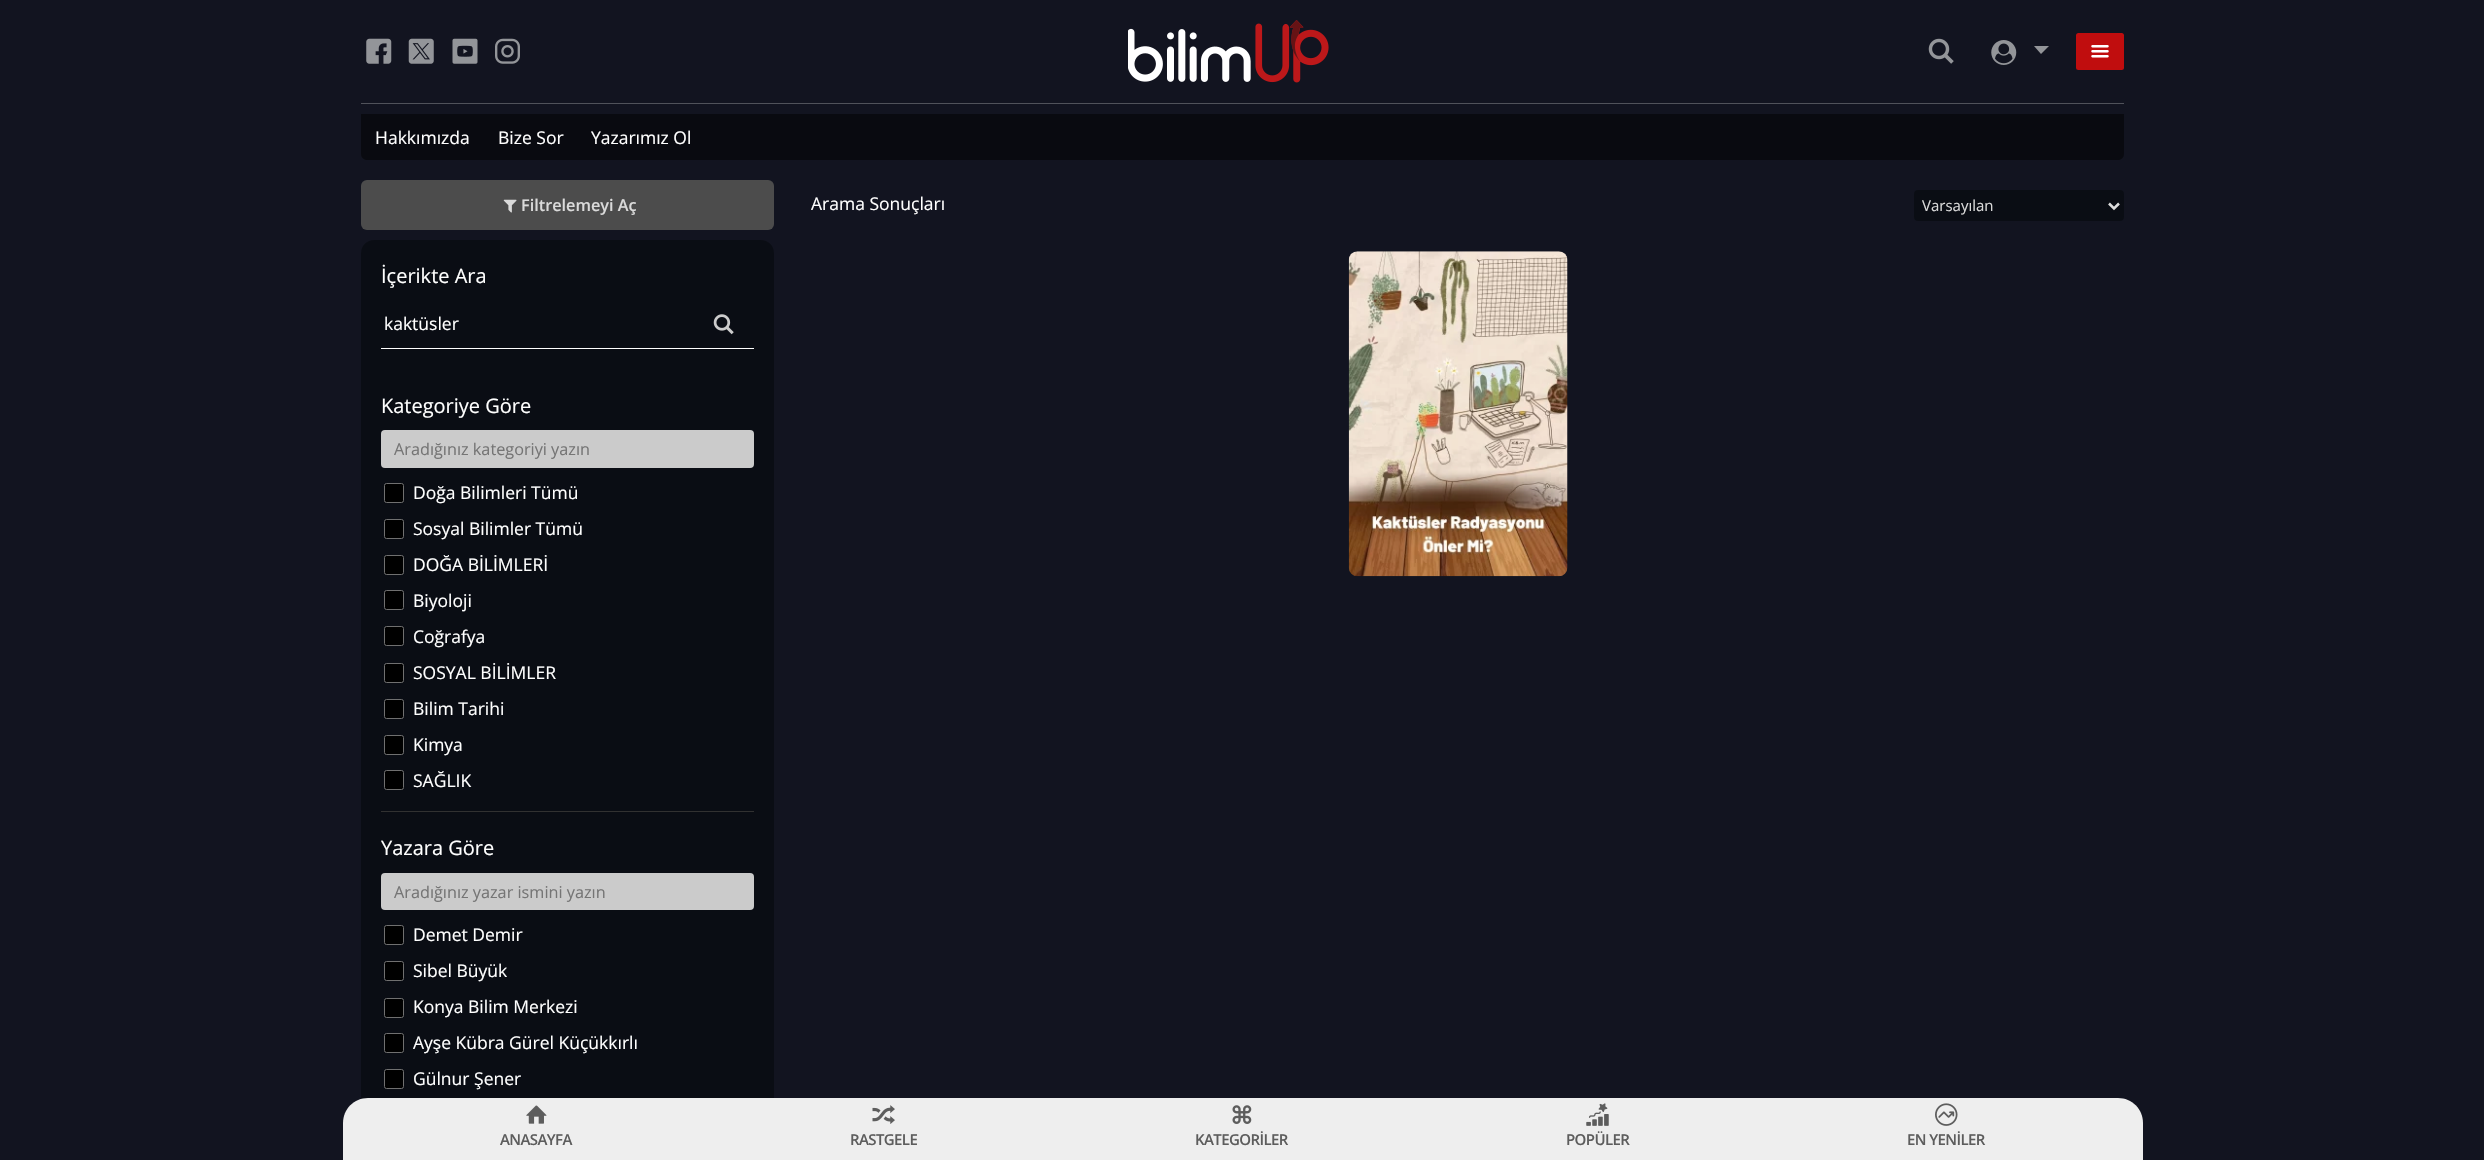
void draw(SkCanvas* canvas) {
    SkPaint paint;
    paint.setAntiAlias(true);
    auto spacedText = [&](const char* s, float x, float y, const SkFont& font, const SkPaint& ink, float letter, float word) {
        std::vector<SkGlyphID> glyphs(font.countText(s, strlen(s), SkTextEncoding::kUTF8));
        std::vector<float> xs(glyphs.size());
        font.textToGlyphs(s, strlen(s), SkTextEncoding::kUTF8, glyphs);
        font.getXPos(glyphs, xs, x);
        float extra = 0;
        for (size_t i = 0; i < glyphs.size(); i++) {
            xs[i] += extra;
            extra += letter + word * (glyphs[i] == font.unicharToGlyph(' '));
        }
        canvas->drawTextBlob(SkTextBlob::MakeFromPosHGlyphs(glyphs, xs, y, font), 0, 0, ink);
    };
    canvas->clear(0xFF121420);
    paint.setColor(0xFF50525A);
    canvas->drawRect(SkRect::MakeXYWH(361, 103, 1763, 1), paint);
    canvas->drawImageRect(SkImages::DeferredFromEncodedData(SkData::MakeFromFileName("img1.png")), SkRect::MakeXYWH(366, 38, 26, 26), SkSamplingOptions());
    canvas->drawImageRect(SkImages::DeferredFromEncodedData(SkData::MakeFromFileName("img2.png")), SkRect::MakeXYWH(408, 38, 26, 26), SkSamplingOptions());
    canvas->drawImageRect(SkImages::DeferredFromEncodedData(SkData::MakeFromFileName("img3.png")), SkRect::MakeXYWH(452, 38, 26, 26), SkSamplingOptions());
    canvas->drawImageRect(SkImages::DeferredFromEncodedData(SkData::MakeFromFileName("img4.png")), SkRect::MakeXYWH(495, 38, 25, 26), SkSamplingOptions());
    canvas->drawImageRect(SkImages::DeferredFromEncodedData(SkData::MakeFromFileName("img5.png")), SkRect::MakeXYWH(1128, 20, 201, 63), SkSamplingOptions());
    canvas->drawImageRect(SkImages::DeferredFromEncodedData(SkData::MakeFromFileName("img6.png")), SkRect::MakeXYWH(1928, 38, 26, 26), SkSamplingOptions());
    canvas->drawImageRect(SkImages::DeferredFromEncodedData(SkData::MakeFromFileName("img7.png")), SkRect::MakeXYWH(1991, 40, 26, 25), SkSamplingOptions());
    paint.setColor(0xFF939599);
    canvas->drawPath(SkPathBuilder().moveTo(2034, 46).lineTo(2049, 46).lineTo(2041, 54).close().detach(), paint);
    paint.setColor(0xFFC00D0E);
    canvas->drawRoundRect(SkRect::MakeXYWH(2076, 33, 48, 37), 2.5f, 2.5f, paint);
    canvas->drawImageRect(SkImages::DeferredFromEncodedData(SkData::MakeFromFileName("img8.png")), SkRect::MakeXYWH(2091, 45, 18, 13), SkSamplingOptions());
    paint.setColor(0xFF090A10);
    canvas->drawPath(SkPathBuilder().moveTo(361, 114).lineTo(2124, 114).lineTo(2124, 154).cubicTo(2124, 157.5f, 2121.5f, 160, 2118, 160).lineTo(367, 160).cubicTo(363.5f, 160, 361, 157.5f, 361, 154).close().detach(), paint);
    SkFont font1(fontMgr->matchFamilyStyle("Open Sans", SkFontStyle::Normal()), 17.5f);
    font1.setSubpixel(true);
    paint.setColor(0xFFFFFFFF);
    canvas->drawString("Hakkımızda", 375, 144, font1, paint);
    canvas->drawString("Bize Sor", 498, 144, font1, paint);
    canvas->drawString("Yazarımız Ol", 591, 144, font1, paint);
    paint.setColor(0xFF4C4C4C);
    canvas->drawRoundRect(SkRect::MakeXYWH(361, 180, 413, 50), 6, 6, paint);
    canvas->drawImageRect(SkImages::DeferredFromEncodedData(SkData::MakeFromFileName("img9.png")), SkRect::MakeXYWH(503, 199, 14, 14), SkSamplingOptions());
    SkFont font2(fontMgr->matchFamilyStyle("Open Sans", SkFontStyle(600, SkFontStyle::kNormal_Width, SkFontStyle::kUpright_Slant)), 16.25f);
    font2.setSubpixel(true);
    paint.setColor(0xFFDADADA);
    canvas->drawString("Filtrelemeyi Aç", 521, 211, font2, paint);
    paint.setColor(0xFF0A0D14);
    canvas->drawRoundRect(SkRect::MakeXYWH(361, 240, 413, 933), 13, 13, paint);
    SkFont font3(fontMgr->matchFamilyStyle("Open Sans", SkFontStyle::Normal()), 20);
    font3.setSubpixel(true);
    paint.setColor(0xFFFFFFFF);
    canvas->drawString("İçerikte Ara", 381, 283, font3, paint);
    canvas->drawRect(SkRect::MakeXYWH(381, 348, 373, 1), paint);
    canvas->drawString("kaktüsler", 384, 330, font1, paint);
    canvas->drawImageRect(SkImages::DeferredFromEncodedData(SkData::MakeFromFileName("img10.png")), SkRect::MakeXYWH(713, 314, 21, 21), SkSamplingOptions());
    canvas->drawString("Kategoriye Göre", 381, 413, font3, paint);
    paint.setColor(0xFFCBCBCB);
    canvas->drawRoundRect(SkRect::MakeXYWH(381, 430, 373, 38), 4, 4, paint);
    SkFont font4(fontMgr->matchFamilyStyle("Open Sans", SkFontStyle::Normal()), 16.25f);
    font4.setSubpixel(true);
    paint.setColor(0xFF757575);
    canvas->drawString("Aradığınız kategoriyi yazın", 394, 455, font4, paint);
    paint.setColor(0xFF000000);
    canvas->drawRoundRect(SkRect::MakeXYWH(384.5f, 483.5f, 19, 19), 2, 2, paint);
    paint.setStyle(SkPaint::kStroke_Style);
    paint.setStrokeWidth(1);
    paint.setColor(0xFF707070);
    canvas->drawRoundRect(SkRect::MakeXYWH(384.5f, 483.5f, 19, 19), 2, 2, paint);
    paint.setStyle(SkPaint::kFill_Style);
    paint.setColor(0xFFFFFFFF);
    canvas->drawString("Doğa Bilimleri Tümü", 413, 499, font1, paint);
    paint.setColor(0xFF000000);
    canvas->drawRoundRect(SkRect::MakeXYWH(384.5f, 519.5f, 19, 19), 2, 2, paint);
    paint.setStyle(SkPaint::kStroke_Style);
    paint.setColor(0xFF707070);
    canvas->drawRoundRect(SkRect::MakeXYWH(384.5f, 519.5f, 19, 19), 2, 2, paint);
    paint.setStyle(SkPaint::kFill_Style);
    paint.setColor(0xFFFFFFFF);
    canvas->drawString("Sosyal Bilimler Tümü", 413, 535, font1, paint);
    paint.setColor(0xFF000000);
    canvas->drawRoundRect(SkRect::MakeXYWH(384.5f, 555.5f, 19, 19), 2, 2, paint);
    paint.setStyle(SkPaint::kStroke_Style);
    paint.setColor(0xFF707070);
    canvas->drawRoundRect(SkRect::MakeXYWH(384.5f, 555.5f, 19, 19), 2, 2, paint);
    paint.setStyle(SkPaint::kFill_Style);
    paint.setColor(0xFFFFFFFF);
    canvas->drawString("DOĞA BİLİMLERİ", 413, 571, font1, paint);
    paint.setColor(0xFF000000);
    canvas->drawRoundRect(SkRect::MakeXYWH(384.5f, 590.5f, 19, 19), 2, 2, paint);
    paint.setStyle(SkPaint::kStroke_Style);
    paint.setColor(0xFF707070);
    canvas->drawRoundRect(SkRect::MakeXYWH(384.5f, 590.5f, 19, 19), 2, 2, paint);
    paint.setStyle(SkPaint::kFill_Style);
    paint.setColor(0xFFFFFFFF);
    canvas->drawString("Biyoloji", 413, 607, font1, paint);
    paint.setColor(0xFF000000);
    canvas->drawRoundRect(SkRect::MakeXYWH(384.5f, 626.5f, 19, 19), 2, 2, paint);
    paint.setStyle(SkPaint::kStroke_Style);
    paint.setColor(0xFF707070);
    canvas->drawRoundRect(SkRect::MakeXYWH(384.5f, 626.5f, 19, 19), 2, 2, paint);
    paint.setStyle(SkPaint::kFill_Style);
    paint.setColor(0xFFFFFFFF);
    canvas->drawString("Coğrafya", 413, 643, font1, paint);
    paint.setColor(0xFF000000);
    canvas->drawRoundRect(SkRect::MakeXYWH(384.5f, 663.5f, 19, 19), 2, 2, paint);
    paint.setStyle(SkPaint::kStroke_Style);
    paint.setColor(0xFF707070);
    canvas->drawRoundRect(SkRect::MakeXYWH(384.5f, 663.5f, 19, 19), 2, 2, paint);
    paint.setStyle(SkPaint::kFill_Style);
    paint.setColor(0xFFFFFFFF);
    canvas->drawString("SOSYAL BİLİMLER", 413, 679, font1, paint);
    paint.setColor(0xFF000000);
    canvas->drawRoundRect(SkRect::MakeXYWH(384.5f, 699.5f, 19, 19), 2, 2, paint);
    paint.setStyle(SkPaint::kStroke_Style);
    paint.setColor(0xFF707070);
    canvas->drawRoundRect(SkRect::MakeXYWH(384.5f, 699.5f, 19, 19), 2, 2, paint);
    paint.setStyle(SkPaint::kFill_Style);
    paint.setColor(0xFFFFFFFF);
    canvas->drawString("Bilim Tarihi", 413, 715, font1, paint);
    paint.setColor(0xFF000000);
    canvas->drawRoundRect(SkRect::MakeXYWH(384.5f, 735.5f, 19, 19), 2, 2, paint);
    paint.setStyle(SkPaint::kStroke_Style);
    paint.setColor(0xFF707070);
    canvas->drawRoundRect(SkRect::MakeXYWH(384.5f, 735.5f, 19, 19), 2, 2, paint);
    paint.setStyle(SkPaint::kFill_Style);
    paint.setColor(0xFFFFFFFF);
    canvas->drawString("Kimya", 413, 751, font1, paint);
    paint.setColor(0xFF000000);
    canvas->drawRoundRect(SkRect::MakeXYWH(384.5f, 770.5f, 19, 19), 2, 2, paint);
    paint.setStyle(SkPaint::kStroke_Style);
    paint.setColor(0xFF707070);
    canvas->drawRoundRect(SkRect::MakeXYWH(384.5f, 770.5f, 19, 19), 2, 2, paint);
    paint.setStyle(SkPaint::kFill_Style);
    paint.setColor(0xFFFFFFFF);
    canvas->drawString("SAĞLIK", 413, 787, font1, paint);
    paint.setColor(0xFF313131);
    canvas->drawRect(SkRect::MakeXYWH(381, 811, 373, 1), paint);
    paint.setColor(0xFFFFFFFF);
    canvas->drawString("Yazara Göre", 381, 855, font3, paint);
    paint.setColor(0xFFCBCBCB);
    canvas->drawRoundRect(SkRect::MakeXYWH(381, 873, 373, 37), 4, 4, paint);
    paint.setColor(0xFF757575);
    canvas->drawString("Aradığınız yazar ismini yazın", 394, 898, font4, paint);
    paint.setColor(0xFF000000);
    canvas->drawRoundRect(SkRect::MakeXYWH(384.5f, 925.5f, 19, 19), 2, 2, paint);
    paint.setStyle(SkPaint::kStroke_Style);
    paint.setColor(0xFF707070);
    canvas->drawRoundRect(SkRect::MakeXYWH(384.5f, 925.5f, 19, 19), 2, 2, paint);
    paint.setStyle(SkPaint::kFill_Style);
    paint.setColor(0xFFFFFFFF);
    canvas->drawString("Demet Demir", 413, 941, font1, paint);
    paint.setColor(0xFF000000);
    canvas->drawRoundRect(SkRect::MakeXYWH(384.5f, 961.5f, 19, 19), 2, 2, paint);
    paint.setStyle(SkPaint::kStroke_Style);
    paint.setColor(0xFF707070);
    canvas->drawRoundRect(SkRect::MakeXYWH(384.5f, 961.5f, 19, 19), 2, 2, paint);
    paint.setStyle(SkPaint::kFill_Style);
    paint.setColor(0xFFFFFFFF);
    canvas->drawString("Sibel Büyük", 413, 977, font1, paint);
    paint.setColor(0xFF000000);
    canvas->drawRoundRect(SkRect::MakeXYWH(384.5f, 998.5f, 19, 19), 2, 2, paint);
    paint.setStyle(SkPaint::kStroke_Style);
    paint.setColor(0xFF707070);
    canvas->drawRoundRect(SkRect::MakeXYWH(384.5f, 998.5f, 19, 19), 2, 2, paint);
    paint.setStyle(SkPaint::kFill_Style);
    paint.setColor(0xFFFFFFFF);
    canvas->drawString("Konya Bilim Merkezi", 413, 1013, font1, paint);
    paint.setColor(0xFF000000);
    canvas->drawRoundRect(SkRect::MakeXYWH(384.5f, 1033.5f, 19, 19), 2, 2, paint);
    paint.setStyle(SkPaint::kStroke_Style);
    paint.setColor(0xFF707070);
    canvas->drawRoundRect(SkRect::MakeXYWH(384.5f, 1033.5f, 19, 19), 2, 2, paint);
    paint.setStyle(SkPaint::kFill_Style);
    paint.setColor(0xFFFFFFFF);
    canvas->drawString("Ayşe Kübra Gürel Küçükkırlı", 413, 1049, font1, paint);
    paint.setColor(0xFF000000);
    canvas->drawRoundRect(SkRect::MakeXYWH(384.5f, 1069.5f, 19, 19), 2, 2, paint);
    paint.setStyle(SkPaint::kStroke_Style);
    paint.setColor(0xFF707070);
    canvas->drawRoundRect(SkRect::MakeXYWH(384.5f, 1069.5f, 19, 19), 2, 2, paint);
    paint.setStyle(SkPaint::kFill_Style);
    paint.setColor(0xFFFFFFFF);
    canvas->drawString("Gülnur Şener", 413, 1085, font1, paint);
    canvas->drawString("Arama Sonuçları", 811, 210, font1, paint);
    paint.setColor(0xFF0A0D14);
    canvas->drawRoundRect(SkRect::MakeXYWH(1914, 190, 210, 31), 4, 4, paint);
    paint.setStyle(SkPaint::kStroke_Style);
    paint.setStrokeWidth(2.5f);
    paint.setColor(0xFFDDDDDD);
    canvas->drawPath(SkPathBuilder().moveTo(2109, 203.5f).lineTo(2114, 208.5f).lineTo(2119, 203.5f).detach(), paint);
    SkFont font5(fontMgr->matchFamilyStyle("Open Sans", SkFontStyle::Normal()), 15);
    font5.setSubpixel(true);
    paint.setStyle(SkPaint::kFill_Style);
    paint.setColor(0xFFDADADA);
    canvas->drawString("Varsayılan", 1922, 211, font5, paint);
    canvas->drawImageRect(SkImages::DeferredFromEncodedData(SkData::MakeFromFileName("img11.png")), SkRect::MakeXYWH(1348, 251, 220, 326), SkSamplingOptions());
    paint.setColor(0xFFEEEEEE);
    canvas->drawPath(SkPathBuilder().moveTo(368, 1098).lineTo(2118, 1098).cubicTo(2132, 1098, 2143, 1109, 2143, 1123).lineTo(2143, 1160).lineTo(343, 1160).lineTo(343, 1123).cubicTo(343, 1109, 354, 1098, 368, 1098).close().detach(), paint);
    canvas->drawImageRect(SkImages::DeferredFromEncodedData(SkData::MakeFromFileName("img12.png")), SkRect::MakeXYWH(526, 1105, 21, 19), SkSamplingOptions());
    SkFont font6(fontMgr->matchFamilyStyle("Open Sans", SkFontStyle(600, SkFontStyle::kNormal_Width, SkFontStyle::kUpright_Slant)), 15);
    font6.setSubpixel(true);
    paint.setColor(0xFF5D5D5D);
    spacedText("ANASAYFA", 500, 1145, font6, paint, -0.6f, 0);
    canvas->drawImageRect(SkImages::DeferredFromEncodedData(SkData::MakeFromFileName("img13.png")), SkRect::MakeXYWH(872, 1105, 23, 19), SkSamplingOptions());
    spacedText("RASTGELE", 850, 1145, font6, paint, -0.6f, 0);
    canvas->drawImageRect(SkImages::DeferredFromEncodedData(SkData::MakeFromFileName("img14.png")), SkRect::MakeXYWH(1232, 1105, 20, 19), SkSamplingOptions());
    spacedText("KATEGORİLER", 1195, 1145, font6, paint, -0.6f, 0);
    canvas->drawImageRect(SkImages::DeferredFromEncodedData(SkData::MakeFromFileName("img15.png")), SkRect::MakeXYWH(1586, 1103, 23, 23), SkSamplingOptions());
    spacedText("POPÜLER", 1566, 1145, font6, paint, -0.6f, 0);
    canvas->drawImageRect(SkImages::DeferredFromEncodedData(SkData::MakeFromFileName("img16.png")), SkRect::MakeXYWH(1935, 1103, 23, 23), SkSamplingOptions());
    spacedText("EN YENİLER", 1907, 1145, font6, paint, -0.6f, 0);
}
